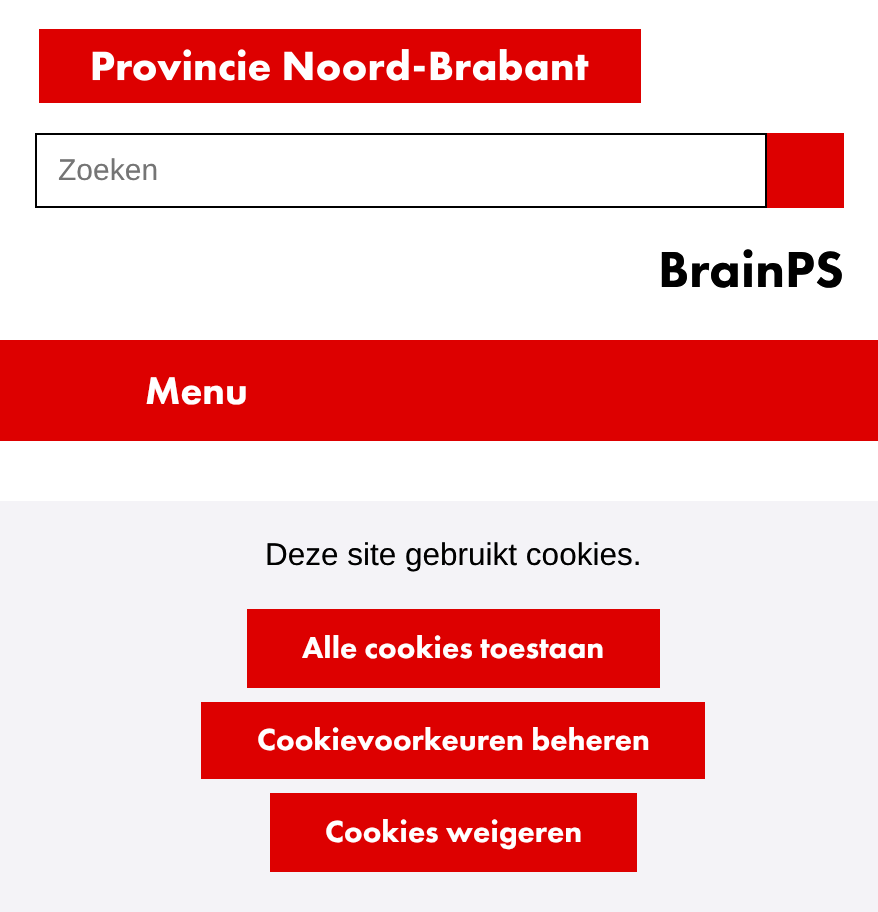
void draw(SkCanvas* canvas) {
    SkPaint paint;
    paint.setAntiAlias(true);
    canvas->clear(0xFFFFFFFF);
    canvas->drawImageRect(SkImages::DeferredFromEncodedData(SkData::MakeFromFileName("img1.png")), SkRect::MakeXYWH(39, 29, 602, 74), SkSamplingOptions());
    paint.setStyle(SkPaint::kStroke_Style);
    paint.setStrokeWidth(2);
    paint.setColor(0xFF000000);
    canvas->drawRect(SkRect::MakeXYWH(36, 134, 730, 73), paint);
    SkFont font1(fontMgr->matchFamilyStyle("Liberation Sans", SkFontStyle::Normal()), 30);
    font1.setSubpixel(true);
    paint.setStyle(SkPaint::kFill_Style);
    paint.setColor(0xFF757575);
    canvas->drawString("Zoeken", 58, 180, font1, paint);
    paint.setColor(0xFFDD0000);
    canvas->drawRect(SkRect::MakeXYWH(767, 133, 77, 75), paint);
    SkFont font2(fontMgr->matchFamilyStyle("Futura PT", SkFontStyle(900, SkFontStyle::kNormal_Width, SkFontStyle::kUpright_Slant)), 52.5f);
    font2.setSubpixel(true);
    paint.setColor(0xFF000000);
    canvas->drawString("BrainPS", 658, 287, font2, paint);
    paint.setColor(0xFFDD0000);
    canvas->drawRect(SkRect::MakeXYWH(0, 340, 878, 101), paint);
    SkFont font3(fontMgr->matchFamilyStyle("Futura PT", SkFontStyle(900, SkFontStyle::kNormal_Width, SkFontStyle::kUpright_Slant)), 40);
    font3.setSubpixel(true);
    paint.setColor(0xFFFFFFFF);
    canvas->drawString("Menu", 145, 404, font3, paint);
    paint.setColor(0xFFF4F3F7);
    canvas->drawRect(SkRect::MakeXYWH(0, 501, 878, 411), paint);
    SkFont font4(fontMgr->matchFamilyStyle("Liberation Sans", SkFontStyle::Normal()), 31.5f);
    font4.setSubpixel(true);
    paint.setColor(0xFF000000);
    canvas->drawString("Deze site gebruikt cookies.", 265, 565, font4, paint);
    paint.setColor(0xFFDD0000);
    canvas->drawRect(SkRect::MakeXYWH(247, 609, 413, 79), paint);
    SkFont font5(fontMgr->matchFamilyStyle("Futura PT", SkFontStyle(900, SkFontStyle::kNormal_Width, SkFontStyle::kUpright_Slant)), 31.5f);
    font5.setSubpixel(true);
    paint.setColor(0xFFFFFFFF);
    canvas->drawString("Alle cookies toestaan", 302, 658, font5, paint);
    paint.setColor(0xFFDD0000);
    canvas->drawRect(SkRect::MakeXYWH(201, 702, 504, 77), paint);
    paint.setColor(0xFFFFFFFF);
    canvas->drawString("Cookievoorkeuren beheren", 257, 750, font5, paint);
    paint.setColor(0xFFDD0000);
    canvas->drawRect(SkRect::MakeXYWH(270, 793, 367, 79), paint);
    paint.setColor(0xFFFFFFFF);
    canvas->drawString("Cookies weigeren", 325, 842, font5, paint);
}
